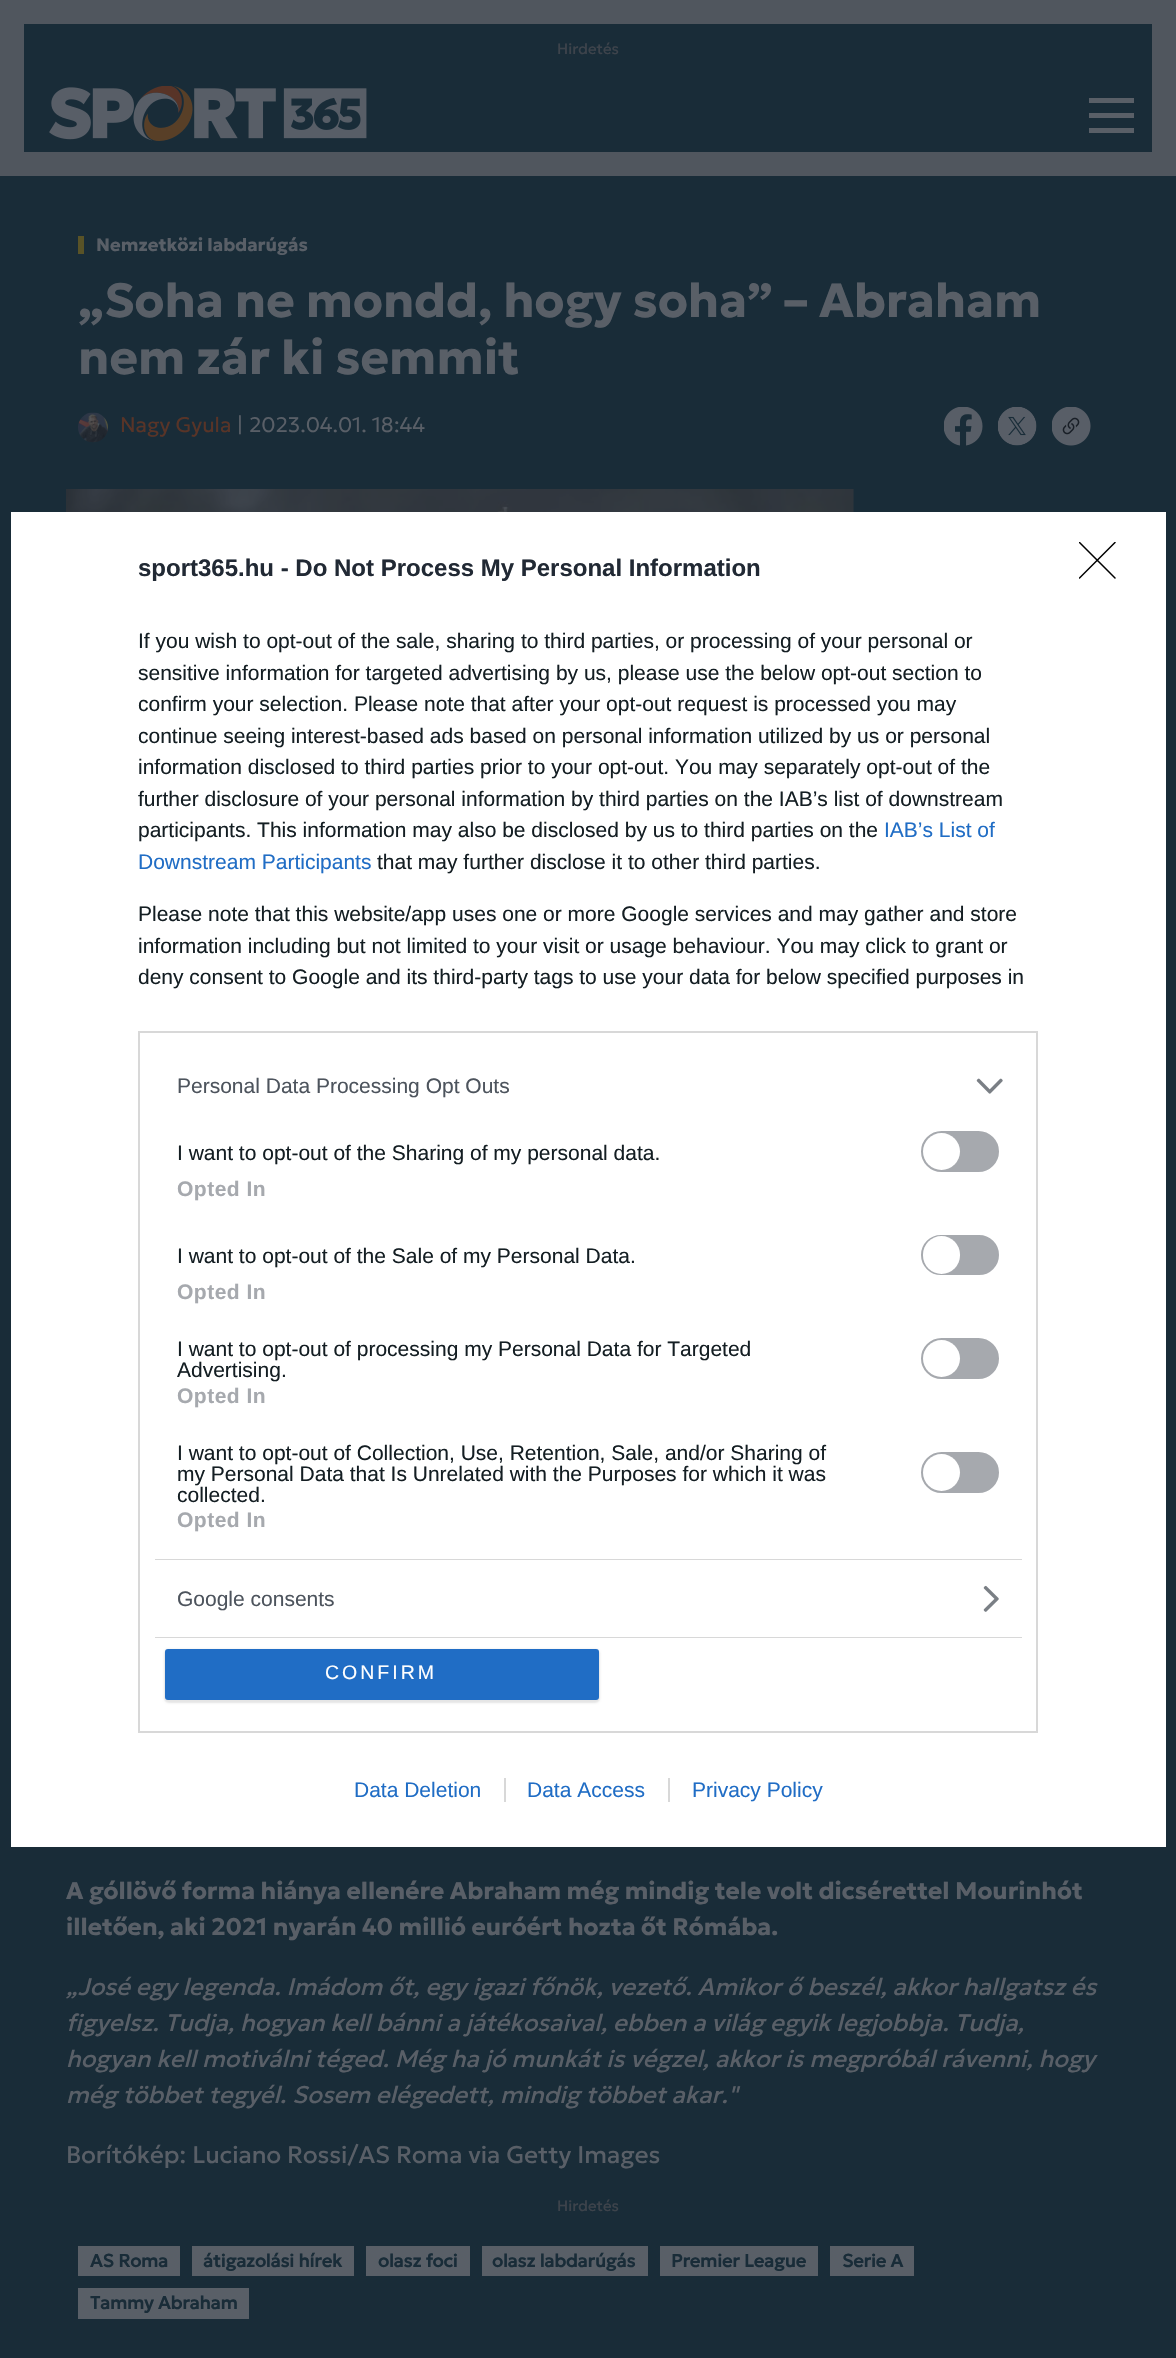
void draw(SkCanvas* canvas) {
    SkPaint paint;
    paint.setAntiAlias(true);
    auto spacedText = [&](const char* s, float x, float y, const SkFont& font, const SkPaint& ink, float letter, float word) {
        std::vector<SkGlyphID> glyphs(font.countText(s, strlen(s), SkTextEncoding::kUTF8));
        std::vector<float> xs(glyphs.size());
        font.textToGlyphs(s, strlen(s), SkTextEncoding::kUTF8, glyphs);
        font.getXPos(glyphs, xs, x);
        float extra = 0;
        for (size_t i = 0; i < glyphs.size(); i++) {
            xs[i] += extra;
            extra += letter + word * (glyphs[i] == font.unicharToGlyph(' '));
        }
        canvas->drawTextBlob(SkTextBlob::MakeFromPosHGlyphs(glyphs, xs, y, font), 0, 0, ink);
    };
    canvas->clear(0xFF192C38);
    paint.setStyle(SkPaint::kStroke_Style);
    paint.setStrokeWidth(24);
    paint.setColor(0xFF50565E);
    canvas->drawRect(SkRect::MakeXYWH(12, 12, 1152, 152), paint);
    SkFont font1(fontMgr->matchFamilyStyle("Geologica", SkFontStyle::Normal()), 15);
    font1.setSubpixel(true);
    paint.setStyle(SkPaint::kFill_Style);
    paint.setColor(0xFF3D434B);
    canvas->drawString("Hirdetés", 557, 54, font1, paint);
    canvas->drawImageRect(SkImages::DeferredFromEncodedData(SkData::MakeFromFileName("img1.png")), SkRect::MakeXYWH(49, 86, 318, 55), SkSamplingOptions());
    paint.setColor(0xFF595F67);
    canvas->drawRect(SkRect::MakeXYWH(1089, 98, 45, 5), paint);
    canvas->drawRect(SkRect::MakeXYWH(1089, 113, 45, 5), paint);
    canvas->drawRect(SkRect::MakeXYWH(1089, 128, 45, 5), paint);
    paint.setColor(0xFF595327);
    canvas->drawRect(SkRect::MakeXYWH(78, 236, 6, 18), paint);
    SkFont font2(fontMgr->matchFamilyStyle("Geologica", SkFontStyle::Bold()), 18);
    font2.setSubpixel(true);
    paint.setColor(0xFF595F67);
    canvas->drawString("Nemzetközi labdarúgás", 96, 251, font2, paint);
    SkFont font3(fontMgr->matchFamilyStyle("Geologica", SkFontStyle::Bold()), 48);
    font3.setSubpixel(true);
    canvas->drawString("„Soha ne mondd, hogy soha” – Abraham", 78, 317, font3, paint);
    canvas->drawString("nem zár ki semmit", 78, 374, font3, paint);
    canvas->drawImageRect(SkImages::DeferredFromEncodedData(SkData::MakeFromFileName("img2.png")), SkRect::MakeXYWH(78, 412, 30, 31), SkSamplingOptions());
    SkFont font4(fontMgr->matchFamilyStyle("Geologica", SkFontStyle(300, SkFontStyle::kNormal_Width, SkFontStyle::kUpright_Slant)), 21);
    font4.setSubpixel(true);
    paint.setColor(0xFF593427);
    canvas->drawString("Nagy Gyula", 120, 432, font4, paint);
    paint.setColor(0xFF595F67);
    canvas->drawString("|", 237, 432, font4, paint);
    canvas->drawString("2023.04.01. 18:44", 249, 432, font4, paint);
    canvas->drawImageRect(SkImages::DeferredFromEncodedData(SkData::MakeFromFileName("img3.png")), SkRect::MakeXYWH(944, 407, 39, 39), SkSamplingOptions());
    canvas->drawImageRect(SkImages::DeferredFromEncodedData(SkData::MakeFromFileName("img4.png")), SkRect::MakeXYWH(998, 407, 39, 39), SkSamplingOptions());
    canvas->drawImageRect(SkImages::DeferredFromEncodedData(SkData::MakeFromFileName("img5.png")), SkRect::MakeXYWH(1052, 407, 39, 39), SkSamplingOptions());
    canvas->drawImageRect(SkImages::DeferredFromEncodedData(SkData::MakeFromFileName("img6.png")), SkRect::MakeXYWH(66, 489, 788, 23), SkSamplingOptions());
    SkFont font5(fontMgr->matchFamilyStyle("Geologica", SkFontStyle::Bold()), 24);
    font5.setSubpixel(true);
    canvas->drawString("A góllövő forma hiánya ellenére Abraham még mindig tele volt dicsérettel Mourinhót", 66, 1899, font5, paint);
    canvas->drawString("illetően, aki 2021 nyarán 40 millió euróért hozta őt Rómába.", 66, 1935, font5, paint);
    SkFont font6(fontMgr->matchFamilyStyle("Geologica", SkFontStyle::Italic()), 24);
    font6.setSubpixel(true);
    canvas->drawString("„José egy legenda. Imádom őt, egy igazi főnök, vezető. Amikor ő beszél, akkor hallgatsz és", 66, 1995, font6, paint);
    canvas->drawString("figyelsz. Tudja, hogyan kell bánni a játékosaival, ebben a világ egyik legjobbja. Tudja,", 66, 2031, font6, paint);
    canvas->drawString("hogyan kell motiválni téged. Még ha jó munkát is végzel, akkor is megpróbál rávenni, hogy", 66, 2067, font6, paint);
    canvas->drawString("még többet tegyél. Sosem elégedett, mindig többet akar.\"", 66, 2103, font6, paint);
    SkFont font7(fontMgr->matchFamilyStyle("Geologica", SkFontStyle::Normal()), 24);
    font7.setSubpixel(true);
    canvas->drawString("Borítókép: Luciano Rossi/AS Roma via Getty Images", 66, 2163, font7, paint);
    paint.setColor(0xFF3D434B);
    canvas->drawString("Hirdetés", 557, 2211, font1, paint);
    paint.setColor(0xFF595F67);
    canvas->drawRect(SkRect::MakeXYWH(78, 2246, 102, 30), paint);
    SkFont font8(fontMgr->matchFamilyStyle("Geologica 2", SkFontStyle::Bold()), 18);
    font8.setSubpixel(true);
    paint.setColor(0xFF192C38);
    canvas->drawString("AS Roma", 90, 2267, font8, paint);
    paint.setColor(0xFF595F67);
    canvas->drawRect(SkRect::MakeXYWH(192, 2246, 162, 30), paint);
    paint.setColor(0xFF192C38);
    canvas->drawString("átigazolási hírek", 203, 2267, font8, paint);
    paint.setColor(0xFF595F67);
    canvas->drawRect(SkRect::MakeXYWH(366, 2246, 104, 30), paint);
    paint.setColor(0xFF192C38);
    canvas->drawString("olasz foci", 378, 2267, font8, paint);
    paint.setColor(0xFF595F67);
    canvas->drawRect(SkRect::MakeXYWH(482, 2246, 166, 30), paint);
    paint.setColor(0xFF192C38);
    canvas->drawString("olasz labdarúgás", 492, 2267, font8, paint);
    paint.setColor(0xFF595F67);
    canvas->drawRect(SkRect::MakeXYWH(660, 2246, 158, 30), paint);
    paint.setColor(0xFF192C38);
    canvas->drawString("Premier League", 671, 2267, font8, paint);
    paint.setColor(0xFF595F67);
    canvas->drawRect(SkRect::MakeXYWH(830, 2246, 84, 30), paint);
    paint.setColor(0xFF192C38);
    canvas->drawString("Serie A", 842, 2267, font8, paint);
    paint.setColor(0xFF595F67);
    canvas->drawRect(SkRect::MakeXYWH(78, 2288, 171, 31), paint);
    paint.setColor(0xFF192C38);
    canvas->drawString("Tammy Abraham", 90, 2309, font8, paint);
    paint.setColor(0xFFFFFFFF);
    canvas->drawRect(SkRect::MakeXYWH(11, 512, 1155, 1335), paint);
    SkFont font9(fontMgr->matchFamilyStyle("Liberation Sans", SkFontStyle::Bold()), 24);
    font9.setSubpixel(true);
    paint.setColor(0xFF212934);
    canvas->drawString("sport365.hu - Do Not Process My Personal Information", 138, 576, font9, paint);
    SkFont font10(fontMgr->matchFamilyStyle("Liberation Sans", SkFontStyle::Normal()), 21);
    font10.setSubpixel(true);
    paint.setColor(0xFF141E23);
    canvas->drawString("If you wish to opt-out of the sale, sharing to third parties, or processing of your personal or", 138, 648, font10, paint);
    canvas->drawString("sensitive information for targeted advertising by us, please use the below opt-out section to", 138, 680, font10, paint);
    canvas->drawString("confirm your selection. Please note that after your opt-out request is processed you may", 138, 711, font10, paint);
    canvas->drawString("continue seeing interest-based ads based on personal information utilized by us or personal", 138, 743, font10, paint);
    canvas->drawString("information disclosed to third parties prior to your opt-out. You may separately opt-out of the", 138, 774, font10, paint);
    canvas->drawString("further disclosure of your personal information by third parties on the IAB’s list of downstream", 138, 806, font10, paint);
    canvas->drawString("participants. This information may also be disclosed by us to third parties on the", 138, 837, font10, paint);
    paint.setColor(0xFF206DC5);
    canvas->drawString("IAB’s List of", 884, 837, font10, paint);
    canvas->drawString("Downstream Participants", 138, 869, font10, paint);
    paint.setColor(0xFF141E23);
    canvas->drawString("that may further disclose it to other third parties.", 377, 869, font10, paint);
    canvas->drawString("Please note that this website/app uses one or more Google services and may gather and store", 138, 921, font10, paint);
    canvas->drawString("information including but not limited to your visit or usage behaviour. You may click to grant or", 138, 953, font10, paint);
    canvas->drawString("deny consent to Google and its third-party tags to use your data for below specified purposes in", 138, 984, font10, paint);
    paint.setStyle(SkPaint::kStroke_Style);
    paint.setStrokeWidth(2);
    paint.setColor(0xFFD8D8D8);
    canvas->drawRect(SkRect::MakeXYWH(139, 1032, 898, 700), paint);
    paint.setStyle(SkPaint::kFill_Style);
    canvas->drawRect(SkRect::MakeXYWH(155, 1559, 867, 1), paint);
    paint.setColor(0xFF4D545D);
    canvas->drawString("Personal Data Processing Opt Outs", 177, 1093, font10, paint);
    canvas->drawImageRect(SkImages::DeferredFromEncodedData(SkData::MakeFromFileName("img7.png")), SkRect::MakeXYWH(976, 1078, 27, 16), SkSamplingOptions());
    paint.setColor(0xFF141E23);
    canvas->drawString("I want to opt-out of the Sharing of my personal data.", 177, 1160, font10, paint);
    paint.setColor(0xFFA6A9AE);
    canvas->drawRoundRect(SkRect::MakeXYWH(922, 1132, 76, 39), 19.5f, 19.5f, paint);
    paint.setStyle(SkPaint::kStroke_Style);
    canvas->drawRoundRect(SkRect::MakeXYWH(922, 1132, 76, 39), 19.5f, 19.5f, paint);
    paint.setStyle(SkPaint::kFill_Style);
    paint.setColor(0xFFFFFFFF);
    canvas->drawCircle(941.5f, 1151.5f, 18.5f, paint);
    SkFont font11(fontMgr->matchFamilyStyle("Liberation Sans", SkFontStyle::Bold()), 21);
    font11.setSubpixel(true);
    paint.setColor(0xFFA6A9AE);
    spacedText("Opted In", 177, 1196, font11, paint, 0.5f, 0);
    paint.setColor(0xFF141E23);
    canvas->drawString("I want to opt-out of the Sale of my Personal Data.", 177, 1263, font10, paint);
    paint.setColor(0xFFA6A9AE);
    canvas->drawRoundRect(SkRect::MakeXYWH(922, 1236, 76, 38), 19, 19, paint);
    paint.setStyle(SkPaint::kStroke_Style);
    canvas->drawRoundRect(SkRect::MakeXYWH(922, 1236, 76, 38), 19, 19, paint);
    paint.setStyle(SkPaint::kFill_Style);
    paint.setColor(0xFFFFFFFF);
    canvas->drawRoundRect(SkRect::MakeXYWH(923, 1236, 37, 38), 18.5f, 18.5f, paint);
    paint.setColor(0xFFA6A9AE);
    spacedText("Opted In", 177, 1299, font11, paint, 0.5f, 0);
    paint.setColor(0xFF141E23);
    canvas->drawString("I want to opt-out of processing my Personal Data for Targeted", 177, 1356, font10, paint);
    canvas->drawString("Advertising.", 177, 1377, font10, paint);
    paint.setColor(0xFFA6A9AE);
    canvas->drawRoundRect(SkRect::MakeXYWH(922, 1339, 76, 39), 19.5f, 19.5f, paint);
    paint.setStyle(SkPaint::kStroke_Style);
    canvas->drawRoundRect(SkRect::MakeXYWH(922, 1339, 76, 39), 19.5f, 19.5f, paint);
    paint.setStyle(SkPaint::kFill_Style);
    paint.setColor(0xFFFFFFFF);
    canvas->drawCircle(941.5f, 1358.5f, 18.5f, paint);
    paint.setColor(0xFFA6A9AE);
    spacedText("Opted In", 177, 1403, font11, paint, 0.5f, 0);
    paint.setColor(0xFF141E23);
    canvas->drawString("I want to opt-out of Collection, Use, Retention, Sale, and/or Sharing of", 177, 1460, font10, paint);
    canvas->drawString("my Personal Data that Is Unrelated with the Purposes for which it was", 177, 1481, font10, paint);
    canvas->drawString("collected.", 177, 1502, font10, paint);
    paint.setColor(0xFFA6A9AE);
    canvas->drawRoundRect(SkRect::MakeXYWH(922, 1453, 76, 39), 19.5f, 19.5f, paint);
    paint.setStyle(SkPaint::kStroke_Style);
    canvas->drawRoundRect(SkRect::MakeXYWH(922, 1453, 76, 39), 19.5f, 19.5f, paint);
    paint.setStyle(SkPaint::kFill_Style);
    paint.setColor(0xFFFFFFFF);
    canvas->drawCircle(941.5f, 1472.5f, 18.5f, paint);
    paint.setColor(0xFFA6A9AE);
    spacedText("Opted In", 177, 1527, font11, paint, 0.5f, 0);
    paint.setColor(0xFFD8D8D8);
    canvas->drawRect(SkRect::MakeXYWH(155, 1637, 867, 1), paint);
    paint.setColor(0xFF4D545D);
    canvas->drawString("Google consents", 177, 1606, font10, paint);
    canvas->drawImageRect(SkImages::DeferredFromEncodedData(SkData::MakeFromFileName("img8.png")), SkRect::MakeXYWH(983, 1585, 16, 27), SkSamplingOptions());
    paint.setColor(0x1A000000);
    paint.setMaskFilter(SkMaskFilter::MakeBlur(kNormal_SkBlurStyle, 1));
    canvas->drawRoundRect(SkRect::MakeXYWH(164, 1649, 436, 54), 5, 5, paint);
    paint.setMaskFilter(nullptr);
    paint.setColor(0xFF206DC5);
    canvas->drawRoundRect(SkRect::MakeXYWH(165, 1649, 434, 51), 3, 3, paint);
    SkFont font12(fontMgr->matchFamilyStyle("Liberation Sans", SkFontStyle::Normal()), 19.5f);
    font12.setSubpixel(true);
    paint.setColor(0xFFFFFFFF);
    spacedText("CONFIRM", 325, 1679, font12, paint, 3, 0);
    canvas->save();
    canvas->clipRect(SkRect::MakeXYWH(1079, 542, 37, 37));
    paint.setStyle(SkPaint::kStroke_Style);
    paint.setStrokeWidth(1.5f);
    paint.setStrokeCap(SkPaint::kRound_Cap);
    paint.setStrokeJoin(SkPaint::kRound_Join);
    paint.setColor(0xFF000000);
    canvas->drawPath(SkPathBuilder().moveTo(1079.5f, 542.5f).lineTo(1115, 578).moveTo(1115, 542.5f).lineTo(1079.5f, 578).detach(), paint);
    canvas->restore();
    paint.setStyle(SkPaint::kFill_Style);
    paint.setColor(0xFF206DC5);
    canvas->drawString("Data Deletion", 354, 1797, font10, paint);
    canvas->drawString("Data Access", 527, 1797, font10, paint);
    paint.setColor(0xFFD8D8D8);
    canvas->drawRect(SkRect::MakeXYWH(504, 1778, 2, 24), paint);
    paint.setColor(0xFF206DC5);
    canvas->drawString("Privacy Policy", 692, 1797, font10, paint);
    paint.setColor(0xFFD8D8D8);
    canvas->drawRect(SkRect::MakeXYWH(668, 1778, 2, 24), paint);
}
